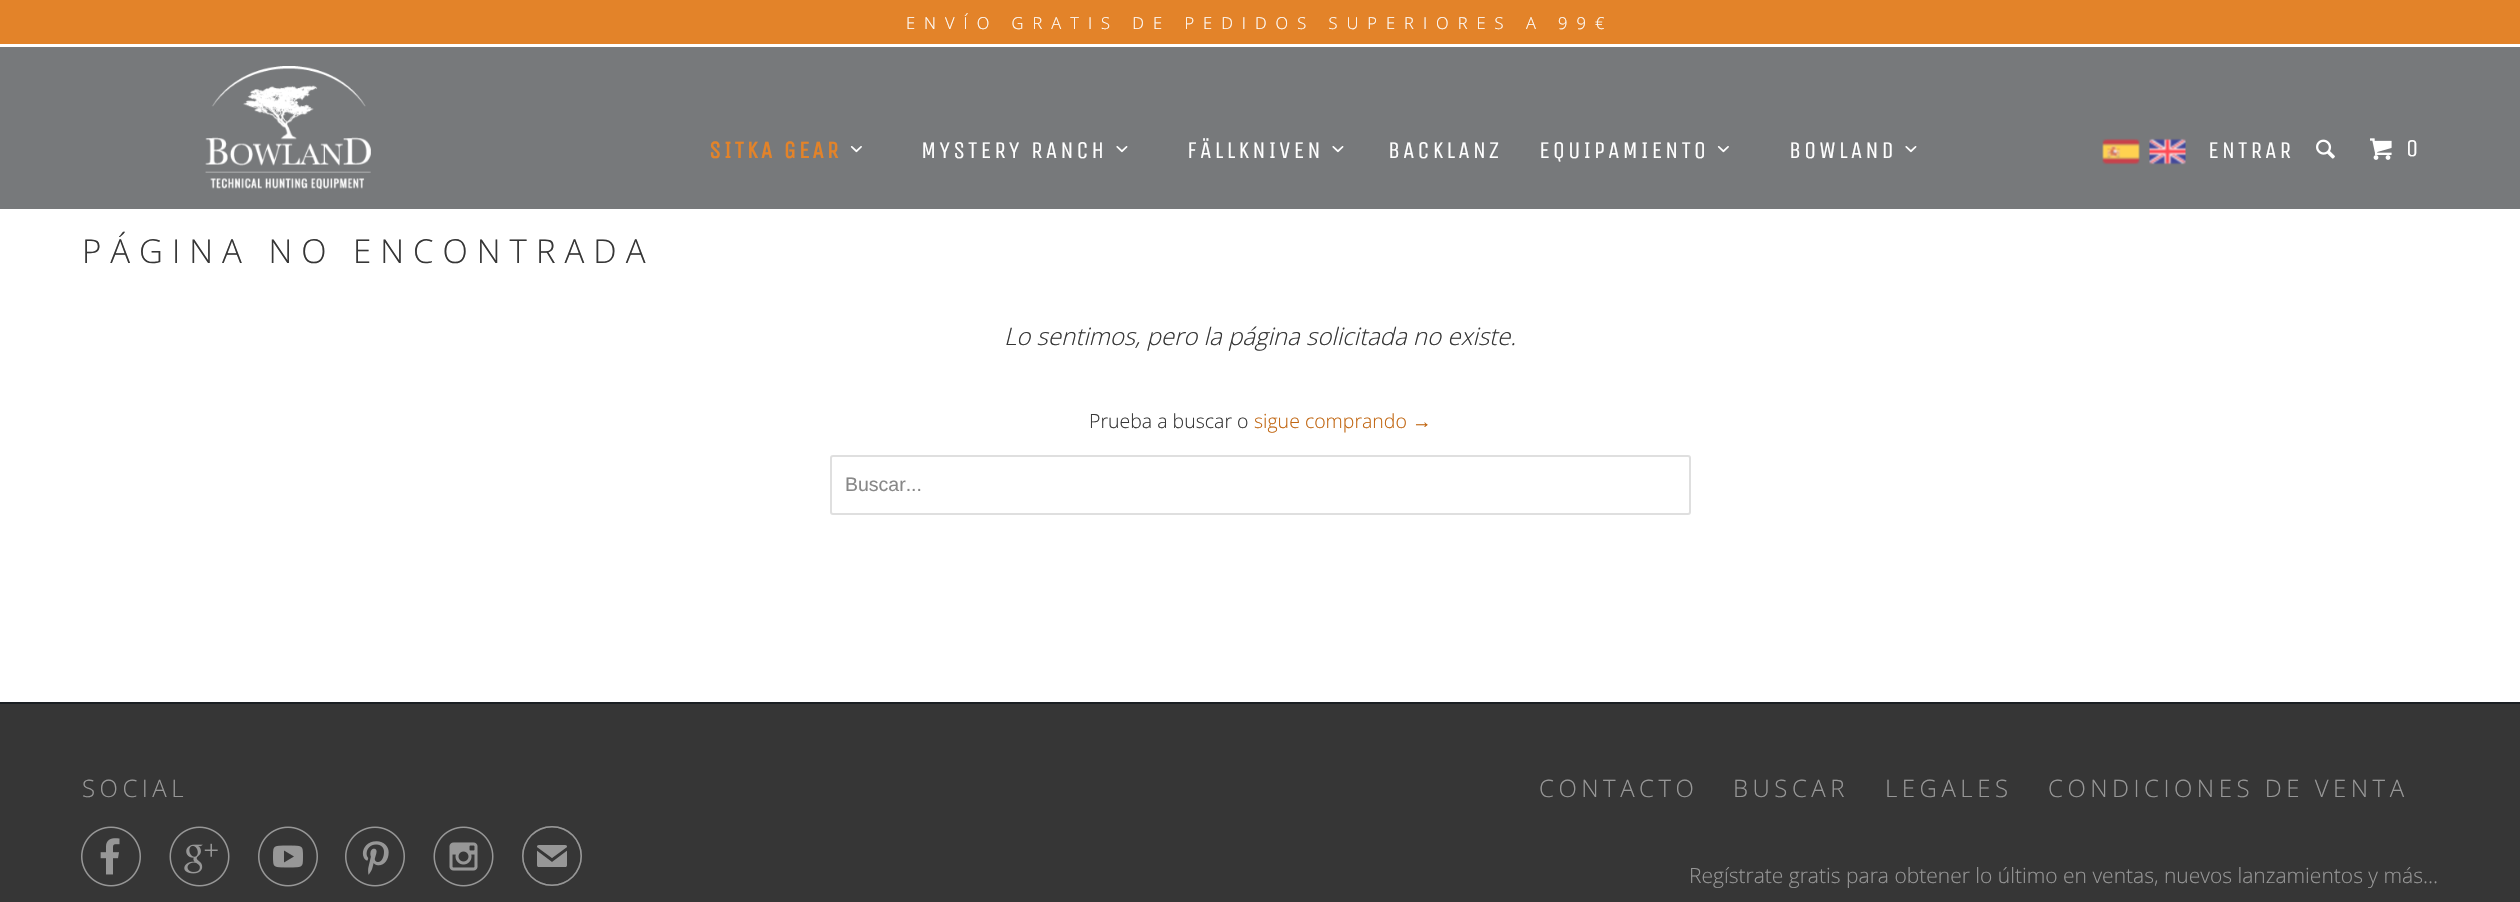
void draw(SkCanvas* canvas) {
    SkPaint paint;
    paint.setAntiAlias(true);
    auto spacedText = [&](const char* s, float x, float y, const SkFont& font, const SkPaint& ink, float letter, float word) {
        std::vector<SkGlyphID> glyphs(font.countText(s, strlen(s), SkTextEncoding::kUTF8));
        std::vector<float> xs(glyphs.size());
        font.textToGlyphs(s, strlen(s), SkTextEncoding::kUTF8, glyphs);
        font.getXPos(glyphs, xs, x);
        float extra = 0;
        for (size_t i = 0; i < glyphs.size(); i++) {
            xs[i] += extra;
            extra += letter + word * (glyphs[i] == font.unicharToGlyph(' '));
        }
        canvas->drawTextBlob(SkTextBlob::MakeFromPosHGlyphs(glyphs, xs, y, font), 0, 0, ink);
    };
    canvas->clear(0xFFFFFFFF);
    paint.setColor(0xFFE38329);
    canvas->drawRect(SkRect::MakeXYWH(0, 0, 2520, 44), paint);
    SkFont font1(fontMgr->matchFamilyStyle("Open Sans", SkFontStyle(300, SkFontStyle::kNormal_Width, SkFontStyle::kUpright_Slant)), 16.5f);
    font1.setSubpixel(true);
    paint.setColor(0xFFFFFFFF);
    spacedText("ENVÍO GRATIS DE PEDIDOS SUPERIORES A 99€", 906, 29, font1, paint, 9, 0);
    paint.setColor(0xFF77797B);
    canvas->drawRect(SkRect::MakeXYWH(0, 47, 2520, 162), paint);
    canvas->drawImageRect(SkImages::DeferredFromEncodedData(SkData::MakeFromFileName("img1.png")), SkRect::MakeXYWH(205, 66, 166, 123), SkSamplingOptions());
    SkFont font2(fontMgr->matchFamilyStyle("Unica One", SkFontStyle::Bold()), 24);
    font2.setSubpixel(true);
    paint.setColor(0xFFE38329);
    spacedText("SITKA GEAR", 709, 158, font2, paint, 3, 0);
    canvas->drawImageRect(SkImages::DeferredFromEncodedData(SkData::MakeFromFileName("img2.png")), SkRect::MakeXYWH(850, 146, 12, 7), SkSamplingOptions());
    SkFont font3(fontMgr->matchFamilyStyle("Unica One", SkFontStyle::Normal()), 24);
    font3.setSubpixel(true);
    paint.setColor(0xFFFFFFFF);
    spacedText("MYSTERY RANCH", 921, 158, font3, paint, 3, 0);
    canvas->drawImageRect(SkImages::DeferredFromEncodedData(SkData::MakeFromFileName("img3.png")), SkRect::MakeXYWH(1116, 146, 12, 7), SkSamplingOptions());
    spacedText("FÄLLKNIVEN", 1187, 158, font3, paint, 3, 0);
    canvas->drawImageRect(SkImages::DeferredFromEncodedData(SkData::MakeFromFileName("img3.png")), SkRect::MakeXYWH(1332, 146, 12, 7), SkSamplingOptions());
    spacedText("BACKLANZ", 1388, 158, font3, paint, 3, 0);
    spacedText("EQUIPAMIENTO", 1539, 158, font3, paint, 3, 0);
    canvas->drawImageRect(SkImages::DeferredFromEncodedData(SkData::MakeFromFileName("img2.png")), SkRect::MakeXYWH(1717, 146, 12, 7), SkSamplingOptions());
    spacedText("BOWLAND", 1789, 158, font3, paint, 3, 0);
    canvas->drawImageRect(SkImages::DeferredFromEncodedData(SkData::MakeFromFileName("img3.png")), SkRect::MakeXYWH(1905, 146, 12, 7), SkSamplingOptions());
    canvas->drawImageRect(SkImages::DeferredFromEncodedData(SkData::MakeFromFileName("img4.png")), SkRect::MakeXYWH(2102, 138, 38, 27), SkSamplingOptions());
    canvas->drawImageRect(SkImages::DeferredFromEncodedData(SkData::MakeFromFileName("img5.png")), SkRect::MakeXYWH(2149, 138, 37, 27), SkSamplingOptions());
    spacedText("ENTRAR", 2208, 158, font3, paint, 3, 0);
    canvas->drawImageRect(SkImages::DeferredFromEncodedData(SkData::MakeFromFileName("img6.png")), SkRect::MakeXYWH(2316, 139, 19, 20), SkSamplingOptions());
    canvas->drawImageRect(SkImages::DeferredFromEncodedData(SkData::MakeFromFileName("img7.png")), SkRect::MakeXYWH(2370, 138, 22, 22), SkSamplingOptions());
    spacedText("0", 2406, 156, font3, paint, 3, 0);
    SkFont font4(fontMgr->matchFamilyStyle("Open Sans", SkFontStyle(300, SkFontStyle::kNormal_Width, SkFontStyle::kUpright_Slant)), 33);
    font4.setSubpixel(true);
    paint.setColor(0xFF363636);
    spacedText("PÁGINA NO ENCONTRADA", 82, 263, font4, paint, 9, 0);
    SkFont font5(fontMgr->matchFamilyStyle("Open Sans", SkFontStyle(300, SkFontStyle::kNormal_Width, SkFontStyle::kItalic_Slant)), 24);
    font5.setSubpixel(true);
    canvas->drawString("Lo sentimos, pero la página solicitada no existe.", 1004, 345, font5, paint);
    SkFont font6(fontMgr->matchFamilyStyle("Open Sans", SkFontStyle(300, SkFontStyle::kNormal_Width, SkFontStyle::kUpright_Slant)), 19.5f);
    font6.setSubpixel(true);
    canvas->drawString("Prueba a buscar o", 1089, 428, font6, paint);
    paint.setColor(0xFFC16611);
    canvas->drawString("sigue comprando", 1254, 428, font6, paint);
    SkFont font7(fontMgr->matchFamilyStyle("Liberation Serif", SkFontStyle::Normal()), 19.5f);
    font7.setSubpixel(true);
    canvas->drawString("→", 1412, 428, font7, paint);
    paint.setStyle(SkPaint::kStroke_Style);
    paint.setStrokeWidth(2);
    paint.setColor(0xFFDFDFDF);
    canvas->drawRoundRect(SkRect::MakeXYWH(831, 456, 859, 58), 2, 2, paint);
    SkFont font8(fontMgr->matchFamilyStyle("Liberation Sans", SkFontStyle::Normal()), 19.5f);
    font8.setSubpixel(true);
    paint.setStyle(SkPaint::kFill_Style);
    paint.setColor(0xFF888888);
    canvas->drawString("Buscar...", 845, 491, font8, paint);
    paint.setColor(0xFF363636);
    canvas->drawRect(SkRect::MakeXYWH(0, 704, 2520, 198), paint);
    paint.setColor(0xFF1B1F23);
    canvas->drawRect(SkRect::MakeXYWH(0, 702, 2520, 2), paint);
    SkFont font9(fontMgr->matchFamilyStyle("Open Sans", SkFontStyle(300, SkFontStyle::kNormal_Width, SkFontStyle::kUpright_Slant)), 24);
    font9.setSubpixel(true);
    paint.setColor(0xFF979797);
    spacedText("SOCIAL", 82, 797, font9, paint, 4.5f, 0);
    canvas->drawImageRect(SkImages::DeferredFromEncodedData(SkData::MakeFromFileName("img8.png")), SkRect::MakeXYWH(81, 826, 60, 61), SkSamplingOptions());
    canvas->drawImageRect(SkImages::DeferredFromEncodedData(SkData::MakeFromFileName("img9.png")), SkRect::MakeXYWH(169, 826, 61, 61), SkSamplingOptions());
    canvas->drawImageRect(SkImages::DeferredFromEncodedData(SkData::MakeFromFileName("img10.png")), SkRect::MakeXYWH(258, 826, 60, 61), SkSamplingOptions());
    canvas->drawImageRect(SkImages::DeferredFromEncodedData(SkData::MakeFromFileName("img11.png")), SkRect::MakeXYWH(345, 826, 60, 61), SkSamplingOptions());
    canvas->drawImageRect(SkImages::DeferredFromEncodedData(SkData::MakeFromFileName("img12.png")), SkRect::MakeXYWH(433, 826, 61, 61), SkSamplingOptions());
    SkFont font10(fontMgr->matchFamilyStyle("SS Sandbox", SkFontStyle::Normal()), 60);
    font10.setSubpixel(true);
    canvas->drawString("✉", 522, 886, font10, paint);
    spacedText("CONTACTO", 1539, 797, font9, paint, 4.5f, 0);
    spacedText("BUSCAR", 1733, 797, font9, paint, 4.5f, 0);
    spacedText("LEGALES", 1885, 797, font9, paint, 4.5f, 0);
    spacedText("CONDICIONES DE VENTA", 2048, 797, font9, paint, 4.5f, 0);
    SkFont font11(fontMgr->matchFamilyStyle("Open Sans", SkFontStyle(300, SkFontStyle::kNormal_Width, SkFontStyle::kUpright_Slant)), 21);
    font11.setSubpixel(true);
    canvas->drawString("Regístrate gratis para obtener lo último en ventas, nuevos lanzamientos y más…", 1689, 883, font11, paint);
}
